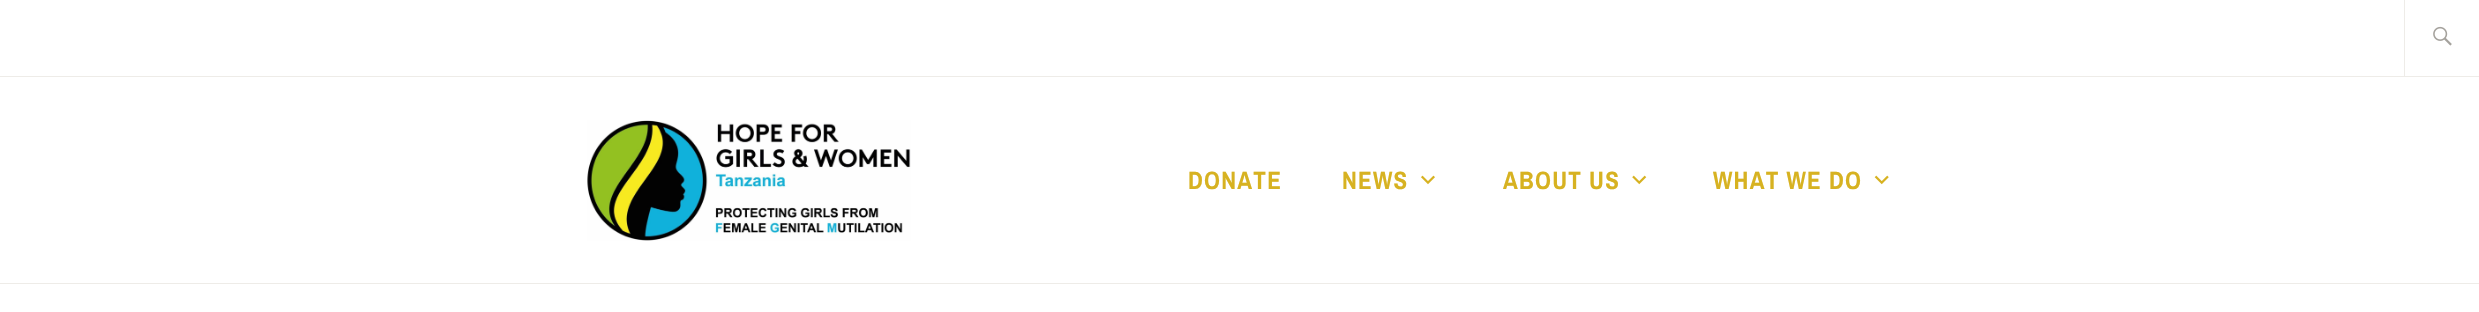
void draw(SkCanvas* canvas) {
    SkPaint paint;
    paint.setAntiAlias(true);
    auto spacedText = [&](const char* s, float x, float y, const SkFont& font, const SkPaint& ink, float letter, float word) {
        std::vector<SkGlyphID> glyphs(font.countText(s, strlen(s), SkTextEncoding::kUTF8));
        std::vector<float> xs(glyphs.size());
        font.textToGlyphs(s, strlen(s), SkTextEncoding::kUTF8, glyphs);
        font.getXPos(glyphs, xs, x);
        float extra = 0;
        for (size_t i = 0; i < glyphs.size(); i++) {
            xs[i] += extra;
            extra += letter + word * (glyphs[i] == font.unicharToGlyph(' '));
        }
        canvas->drawTextBlob(SkTextBlob::MakeFromPosHGlyphs(glyphs, xs, y, font), 0, 0, ink);
    };
    canvas->clear(0xFFFFFFFF);
    paint.setColor(0xFFEEECE8);
    canvas->drawRect(SkRect::MakeXYWH(0, 283, 2479, 1), paint);
    canvas->drawRect(SkRect::MakeXYWH(0, 76, 2479, 1), paint);
    canvas->drawRect(SkRect::MakeXYWH(2404, 0, 1, 76), paint);
    canvas->drawImageRect(SkImages::DeferredFromEncodedData(SkData::MakeFromFileName("img1.png")), SkRect::MakeXYWH(2433, 26, 19, 20), SkSamplingOptions());
    canvas->drawImageRect(SkImages::DeferredFromEncodedData(SkData::MakeFromFileName("img2.png")), SkRect::MakeXYWH(587, 120, 324, 121), SkSamplingOptions());
    SkFont font1(fontMgr->matchFamilyStyle("Archivo Narrow", SkFontStyle::Bold()), 25);
    font1.setSubpixel(true);
    paint.setColor(0xFFD7B221);
    spacedText("DONATE", 1188, 189, font1, paint, 1.25f, 0);
    spacedText("NEWS", 1342, 189, font1, paint, 1.25f, 0);
    canvas->drawImageRect(SkImages::DeferredFromEncodedData(SkData::MakeFromFileName("img3.png")), SkRect::MakeXYWH(1421, 175, 14, 10), SkSamplingOptions());
    spacedText("ABOUT US", 1503, 189, font1, paint, 1.25f, 0);
    canvas->drawImageRect(SkImages::DeferredFromEncodedData(SkData::MakeFromFileName("img4.png")), SkRect::MakeXYWH(1632, 175, 15, 10), SkSamplingOptions());
    spacedText("WHAT WE DO", 1713, 189, font1, paint, 1.25f, 0);
    canvas->drawImageRect(SkImages::DeferredFromEncodedData(SkData::MakeFromFileName("img5.png")), SkRect::MakeXYWH(1874, 175, 15, 10), SkSamplingOptions());
}
